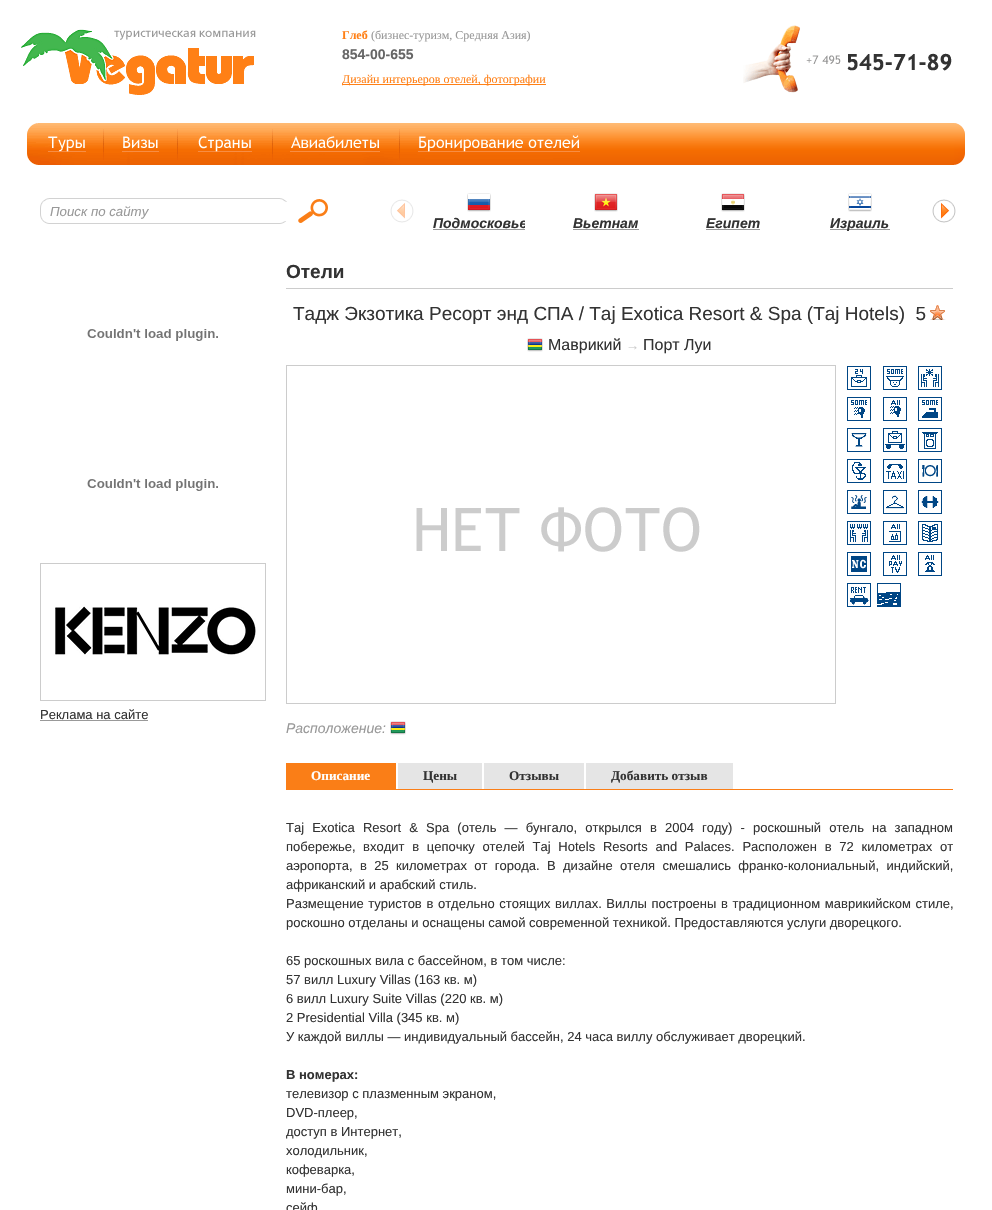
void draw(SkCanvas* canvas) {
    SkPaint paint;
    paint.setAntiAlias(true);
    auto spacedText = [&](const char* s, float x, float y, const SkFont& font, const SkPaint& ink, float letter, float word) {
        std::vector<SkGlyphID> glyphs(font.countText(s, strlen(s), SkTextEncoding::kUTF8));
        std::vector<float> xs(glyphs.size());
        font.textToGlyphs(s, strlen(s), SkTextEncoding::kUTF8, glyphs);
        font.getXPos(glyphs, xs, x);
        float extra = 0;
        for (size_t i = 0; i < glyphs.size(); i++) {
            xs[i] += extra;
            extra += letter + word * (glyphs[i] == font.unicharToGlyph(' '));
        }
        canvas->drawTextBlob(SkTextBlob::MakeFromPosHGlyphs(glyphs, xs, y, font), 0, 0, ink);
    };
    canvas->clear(0xFFFFFFFF);
    canvas->drawImageRect(SkImages::DeferredFromEncodedData(SkData::MakeFromFileName("img1.png")), SkRect::MakeXYWH(21, 29, 235, 66), SkSamplingOptions());
    SkFont font1(fontMgr->matchFamilyStyle("Liberation Serif", SkFontStyle::Bold()), 12);
    font1.setSubpixel(true);
    paint.setColor(0xFFFF8016);
    canvas->drawString("Глеб", 342, 39, font1, paint);
    SkFont font2(fontMgr->matchFamilyStyle("Liberation Serif", SkFontStyle::Normal()), 12);
    font2.setSubpixel(true);
    paint.setColor(0xFF999999);
    canvas->drawString("(бизнес-туризм, Средняя Азия)", 371, 39, font2, paint);
    SkFont font3(fontMgr->matchFamilyStyle("Liberation Sans", SkFontStyle::Bold()), 14);
    font3.setSubpixel(true);
    paint.setColor(0xFF666666);
    canvas->drawString("854-00-655", 342, 59, font3, paint);
    paint.setColor(0xFFFF8016);
    canvas->drawRect(SkRect::MakeXYWH(342, 84, 204, 1), paint);
    canvas->drawString("Дизайн интерьеров отелей, фотографии", 342, 83, font2, paint);
    canvas->drawImageRect(SkImages::DeferredFromEncodedData(SkData::MakeFromFileName("img2.png")), SkRect::MakeXYWH(743, 25, 209, 68), SkSamplingOptions());
    canvas->drawImageRect(SkImages::DeferredFromEncodedData(SkData::MakeFromFileName("img3.png")), SkRect::MakeXYWH(580, 123, 374, 42), SkSamplingOptions());
    canvas->drawImageRect(SkImages::DeferredFromEncodedData(SkData::MakeFromFileName("img4.png")), SkRect::MakeXYWH(27, 123, 553, 42), SkSamplingOptions());
    canvas->drawImageRect(SkImages::DeferredFromEncodedData(SkData::MakeFromFileName("img5.png")), SkRect::MakeXYWH(954, 123, 11, 42), SkSamplingOptions());
    canvas->drawImageRect(SkImages::DeferredFromEncodedData(SkData::MakeFromFileName("img6.png")), SkRect::MakeXYWH(40, 198, 249, 26), SkSamplingOptions());
    paint.setColor(0xFFFFFFFF);
    canvas->drawRect(SkRect::MakeXYWH(285, 202, 4, 19), paint);
    SkFont font4(fontMgr->matchFamilyStyle("Liberation Sans", SkFontStyle::Italic()), 13.25f);
    font4.setSubpixel(true);
    paint.setColor(0xFF999999);
    canvas->drawString("Поиск по сайту", 50, 216, font4, paint);
    canvas->drawImageRect(SkImages::DeferredFromEncodedData(SkData::MakeFromFileName("img7.png")), SkRect::MakeXYWH(298, 199, 30, 24), SkSamplingOptions());
    canvas->drawImageRect(SkImages::DeferredFromEncodedData(SkData::MakeFromFileName("img8.png")), SkRect::MakeXYWH(467, 193, 24, 19), SkSamplingOptions());
    canvas->save();
    canvas->clipRect(SkRect::MakeXYWH(433, 190, 92, 43));
    SkFont font5(fontMgr->matchFamilyStyle("Liberation Sans", SkFontStyle::BoldItalic()), 14);
    font5.setSubpixel(true);
    paint.setColor(0xFF333333);
    canvas->drawString("Подмосковье", 433, 228, font5, paint);
    canvas->restore();
    paint.setColor(0xFF999999);
    canvas->drawRect(SkRect::MakeXYWH(433, 229, 92, 1), paint);
    canvas->drawImageRect(SkImages::DeferredFromEncodedData(SkData::MakeFromFileName("img9.png")), SkRect::MakeXYWH(594, 193, 24, 19), SkSamplingOptions());
    paint.setColor(0xFF333333);
    canvas->drawString("Вьетнам", 573, 228, font5, paint);
    paint.setColor(0xFF999999);
    canvas->drawRect(SkRect::MakeXYWH(573, 229, 66, 1), paint);
    canvas->drawImageRect(SkImages::DeferredFromEncodedData(SkData::MakeFromFileName("img10.png")), SkRect::MakeXYWH(721, 193, 24, 19), SkSamplingOptions());
    paint.setColor(0xFF333333);
    canvas->drawString("Египет", 706, 228, font5, paint);
    paint.setColor(0xFF999999);
    canvas->drawRect(SkRect::MakeXYWH(706, 229, 54, 1), paint);
    canvas->drawImageRect(SkImages::DeferredFromEncodedData(SkData::MakeFromFileName("img11.png")), SkRect::MakeXYWH(848, 193, 24, 19), SkSamplingOptions());
    canvas->drawRect(SkRect::MakeXYWH(830, 229, 60, 1), paint);
    paint.setColor(0xFF333333);
    canvas->drawString("Израиль", 830, 228, font5, paint);
    canvas->drawImageRect(SkImages::DeferredFromEncodedData(SkData::MakeFromFileName("img12.png")), SkRect::MakeXYWH(87, 329, 131, 12), SkSamplingOptions());
    canvas->drawImageRect(SkImages::DeferredFromEncodedData(SkData::MakeFromFileName("img12.png")), SkRect::MakeXYWH(87, 479, 131, 12), SkSamplingOptions());
    canvas->drawImageRect(SkImages::DeferredFromEncodedData(SkData::MakeFromFileName("img13.png")), SkRect::MakeXYWH(40, 563, 226, 138), SkSamplingOptions());
    SkFont font6(fontMgr->matchFamilyStyle("Liberation Sans", SkFontStyle::Normal()), 13);
    font6.setSubpixel(true);
    canvas->drawString("Реклама на сайте", 40, 719, font6, paint);
    paint.setColor(0xFF999999);
    canvas->drawRect(SkRect::MakeXYWH(40, 720, 108, 1), paint);
    paint.setColor(0xFFCCCCCC);
    canvas->drawRect(SkRect::MakeXYWH(286, 288, 667, 1), paint);
    SkFont font7(fontMgr->matchFamilyStyle("Liberation Sans", SkFontStyle::Bold()), 19);
    font7.setSubpixel(true);
    paint.setColor(0xFF333333);
    canvas->drawString("Отели", 286, 278, font7, paint);
    SkFont font8(fontMgr->matchFamilyStyle("Liberation Sans", SkFontStyle::Normal()), 19);
    font8.setSubpixel(true);
    canvas->drawString("Тадж Экзотика Ресорт энд СПА / Taj Exotica Resort & Spa (Taj Hotels)  5", 293, 320, font8, paint);
    canvas->drawImageRect(SkImages::DeferredFromEncodedData(SkData::MakeFromFileName("img14.png")), SkRect::MakeXYWH(930, 305, 16, 15), SkSamplingOptions());
    canvas->drawImageRect(SkImages::DeferredFromEncodedData(SkData::MakeFromFileName("img15.png")), SkRect::MakeXYWH(527, 338, 16, 14), SkSamplingOptions());
    SkFont font9(fontMgr->matchFamilyStyle("Liberation Sans", SkFontStyle::Normal()), 16);
    font9.setSubpixel(true);
    canvas->drawString("Маврикий", 548, 350, font9, paint);
    SkFont font10(fontMgr->matchFamilyStyle("Liberation Sans", SkFontStyle::Normal()), 13.25f);
    font10.setSubpixel(true);
    paint.setColor(0xFFCCCCCC);
    canvas->drawString("→", 626, 350, font10, paint);
    paint.setColor(0xFF333333);
    canvas->drawString("Порт Луи", 643, 350, font9, paint);
    canvas->drawImageRect(SkImages::DeferredFromEncodedData(SkData::MakeFromFileName("img16.png")), SkRect::MakeXYWH(286, 365, 550, 339), SkSamplingOptions());
    canvas->drawImageRect(SkImages::DeferredFromEncodedData(SkData::MakeFromFileName("img17.png")), SkRect::MakeXYWH(847, 366, 24, 24), SkSamplingOptions());
    canvas->drawImageRect(SkImages::DeferredFromEncodedData(SkData::MakeFromFileName("img18.png")), SkRect::MakeXYWH(883, 366, 24, 24), SkSamplingOptions());
    canvas->drawImageRect(SkImages::DeferredFromEncodedData(SkData::MakeFromFileName("img19.png")), SkRect::MakeXYWH(918, 366, 24, 24), SkSamplingOptions());
    canvas->drawImageRect(SkImages::DeferredFromEncodedData(SkData::MakeFromFileName("img20.png")), SkRect::MakeXYWH(847, 397, 24, 24), SkSamplingOptions());
    canvas->drawImageRect(SkImages::DeferredFromEncodedData(SkData::MakeFromFileName("img21.png")), SkRect::MakeXYWH(883, 397, 24, 24), SkSamplingOptions());
    canvas->drawImageRect(SkImages::DeferredFromEncodedData(SkData::MakeFromFileName("img22.png")), SkRect::MakeXYWH(918, 397, 24, 24), SkSamplingOptions());
    canvas->drawImageRect(SkImages::DeferredFromEncodedData(SkData::MakeFromFileName("img23.png")), SkRect::MakeXYWH(847, 428, 24, 24), SkSamplingOptions());
    canvas->drawImageRect(SkImages::DeferredFromEncodedData(SkData::MakeFromFileName("img24.png")), SkRect::MakeXYWH(883, 428, 24, 24), SkSamplingOptions());
    canvas->drawImageRect(SkImages::DeferredFromEncodedData(SkData::MakeFromFileName("img25.png")), SkRect::MakeXYWH(918, 428, 24, 24), SkSamplingOptions());
    canvas->drawImageRect(SkImages::DeferredFromEncodedData(SkData::MakeFromFileName("img26.png")), SkRect::MakeXYWH(847, 459, 24, 24), SkSamplingOptions());
    canvas->drawImageRect(SkImages::DeferredFromEncodedData(SkData::MakeFromFileName("img27.png")), SkRect::MakeXYWH(883, 459, 24, 24), SkSamplingOptions());
    canvas->drawImageRect(SkImages::DeferredFromEncodedData(SkData::MakeFromFileName("img28.png")), SkRect::MakeXYWH(918, 459, 24, 24), SkSamplingOptions());
    canvas->drawImageRect(SkImages::DeferredFromEncodedData(SkData::MakeFromFileName("img29.png")), SkRect::MakeXYWH(847, 490, 24, 24), SkSamplingOptions());
    canvas->drawImageRect(SkImages::DeferredFromEncodedData(SkData::MakeFromFileName("img30.png")), SkRect::MakeXYWH(883, 490, 24, 24), SkSamplingOptions());
    canvas->drawImageRect(SkImages::DeferredFromEncodedData(SkData::MakeFromFileName("img31.png")), SkRect::MakeXYWH(918, 490, 24, 24), SkSamplingOptions());
    canvas->drawImageRect(SkImages::DeferredFromEncodedData(SkData::MakeFromFileName("img32.png")), SkRect::MakeXYWH(847, 521, 24, 24), SkSamplingOptions());
    canvas->drawImageRect(SkImages::DeferredFromEncodedData(SkData::MakeFromFileName("img33.png")), SkRect::MakeXYWH(883, 521, 24, 24), SkSamplingOptions());
    canvas->drawImageRect(SkImages::DeferredFromEncodedData(SkData::MakeFromFileName("img34.png")), SkRect::MakeXYWH(918, 521, 24, 24), SkSamplingOptions());
    canvas->drawImageRect(SkImages::DeferredFromEncodedData(SkData::MakeFromFileName("img35.png")), SkRect::MakeXYWH(847, 552, 24, 24), SkSamplingOptions());
    canvas->drawImageRect(SkImages::DeferredFromEncodedData(SkData::MakeFromFileName("img36.png")), SkRect::MakeXYWH(883, 552, 24, 24), SkSamplingOptions());
    canvas->drawImageRect(SkImages::DeferredFromEncodedData(SkData::MakeFromFileName("img37.png")), SkRect::MakeXYWH(918, 552, 24, 24), SkSamplingOptions());
    canvas->drawImageRect(SkImages::DeferredFromEncodedData(SkData::MakeFromFileName("img38.png")), SkRect::MakeXYWH(847, 583, 24, 24), SkSamplingOptions());
    canvas->drawImageRect(SkImages::DeferredFromEncodedData(SkData::MakeFromFileName("img39.png")), SkRect::MakeXYWH(877, 583, 24, 24), SkSamplingOptions());
    SkFont font11(fontMgr->matchFamilyStyle("Liberation Sans", SkFontStyle::Italic()), 14);
    font11.setSubpixel(true);
    paint.setColor(0xFF999999);
    canvas->drawString("Расположение:", 286, 733, font11, paint);
    canvas->drawImageRect(SkImages::DeferredFromEncodedData(SkData::MakeFromFileName("img15.png")), SkRect::MakeXYWH(390, 721, 16, 14), SkSamplingOptions());
    paint.setColor(0xFFFA7E17);
    canvas->drawRect(SkRect::MakeXYWH(286, 789, 667, 1), paint);
    canvas->drawRect(SkRect::MakeXYWH(286, 763, 110, 26), paint);
    SkFont font12(fontMgr->matchFamilyStyle("Liberation Serif", SkFontStyle::Bold()), 13.25f);
    font12.setSubpixel(true);
    paint.setColor(0xFFFFFFFF);
    canvas->drawString("Описание", 311, 780, font12, paint);
    paint.setColor(0xFFE5E5E5);
    canvas->drawRect(SkRect::MakeXYWH(398, 763, 84, 26), paint);
    paint.setColor(0xFF333333);
    canvas->drawString("Цены", 423, 780, font12, paint);
    paint.setColor(0xFFE5E5E5);
    canvas->drawRect(SkRect::MakeXYWH(484, 763, 100, 26), paint);
    paint.setColor(0xFF333333);
    canvas->drawString("Отзывы", 509, 780, font12, paint);
    paint.setColor(0xFFE5E5E5);
    canvas->drawRect(SkRect::MakeXYWH(586, 763, 147, 26), paint);
    paint.setColor(0xFF333333);
    canvas->drawString("Добавить отзыв", 611, 780, font12, paint);
    spacedText("Taj Exotica Resort & Spa (отель — бунгало, открылся в 2004 году) - роскошный отель на западном", 286, 832, font6, paint, 0, 4.5f);
    canvas->drawString("побережье,", 286, 851, font6, paint);
    spacedText("входит в цепочку отелей Taj Hotels Resorts and Palaces. Расположен в 72 километрах от", 363, 851, font6, paint, 0, 4.1f);
    spacedText("аэропорта, в 25 километрах от города.", 286, 870, font6, paint, 0, 3.75f);
    spacedText("В дизайне отеля смешались франко-колониальный, индийский,", 547, 870, font6, paint, 0, 3.75f);
    canvas->drawString("африканский и арабский стиль.", 286, 889, font6, paint);
    spacedText("Размещение туристов в отдельно стоящих виллах. Виллы построены в традиционном маврикийском стиле,", 286, 908, font6, paint, 0, 1);
    canvas->drawString("роскошно отделаны и оснащены самой современной техникой. Предоставляются услуги дворецкого.", 286, 927, font6, paint);
    canvas->drawString("65 роскошных вила с бассейном, в том числе:", 286, 965, font6, paint);
    canvas->drawString("57 вилл Luxury Villas (163 кв. м)", 286, 984, font6, paint);
    canvas->drawString("6 вилл Luxury Suite Villas (220 кв. м)", 286, 1003, font6, paint);
    canvas->drawString("2 Presidential Villa (345 кв. м)", 286, 1022, font6, paint);
    canvas->drawString("У каждой виллы — индивидуальный бассейн, 24 часа виллу обслуживает дворецкий.", 286, 1041, font6, paint);
    SkFont font13(fontMgr->matchFamilyStyle("Liberation Sans", SkFontStyle::Bold()), 13);
    font13.setSubpixel(true);
    canvas->drawString("В номерах:", 286, 1079, font13, paint);
    canvas->drawString("телевизор с плазменным экраном,", 286, 1098, font6, paint);
    canvas->drawString("DVD-плеер,", 286, 1117, font6, paint);
    canvas->drawString("доступ в Интернет,", 286, 1136, font6, paint);
    canvas->drawString("холодильник,", 286, 1155, font6, paint);
    canvas->drawString("кофеварка,", 286, 1174, font6, paint);
    canvas->drawString("мини-бар,", 286, 1193, font6, paint);
    canvas->drawString("сейф", 286, 1212, font6, paint);
    canvas->drawImageRect(SkImages::DeferredFromEncodedData(SkData::MakeFromFileName("img40.png")), SkRect::MakeXYWH(390, 199, 24, 24), SkSamplingOptions());
    canvas->drawImageRect(SkImages::DeferredFromEncodedData(SkData::MakeFromFileName("img41.png")), SkRect::MakeXYWH(932, 199, 24, 24), SkSamplingOptions());
}
